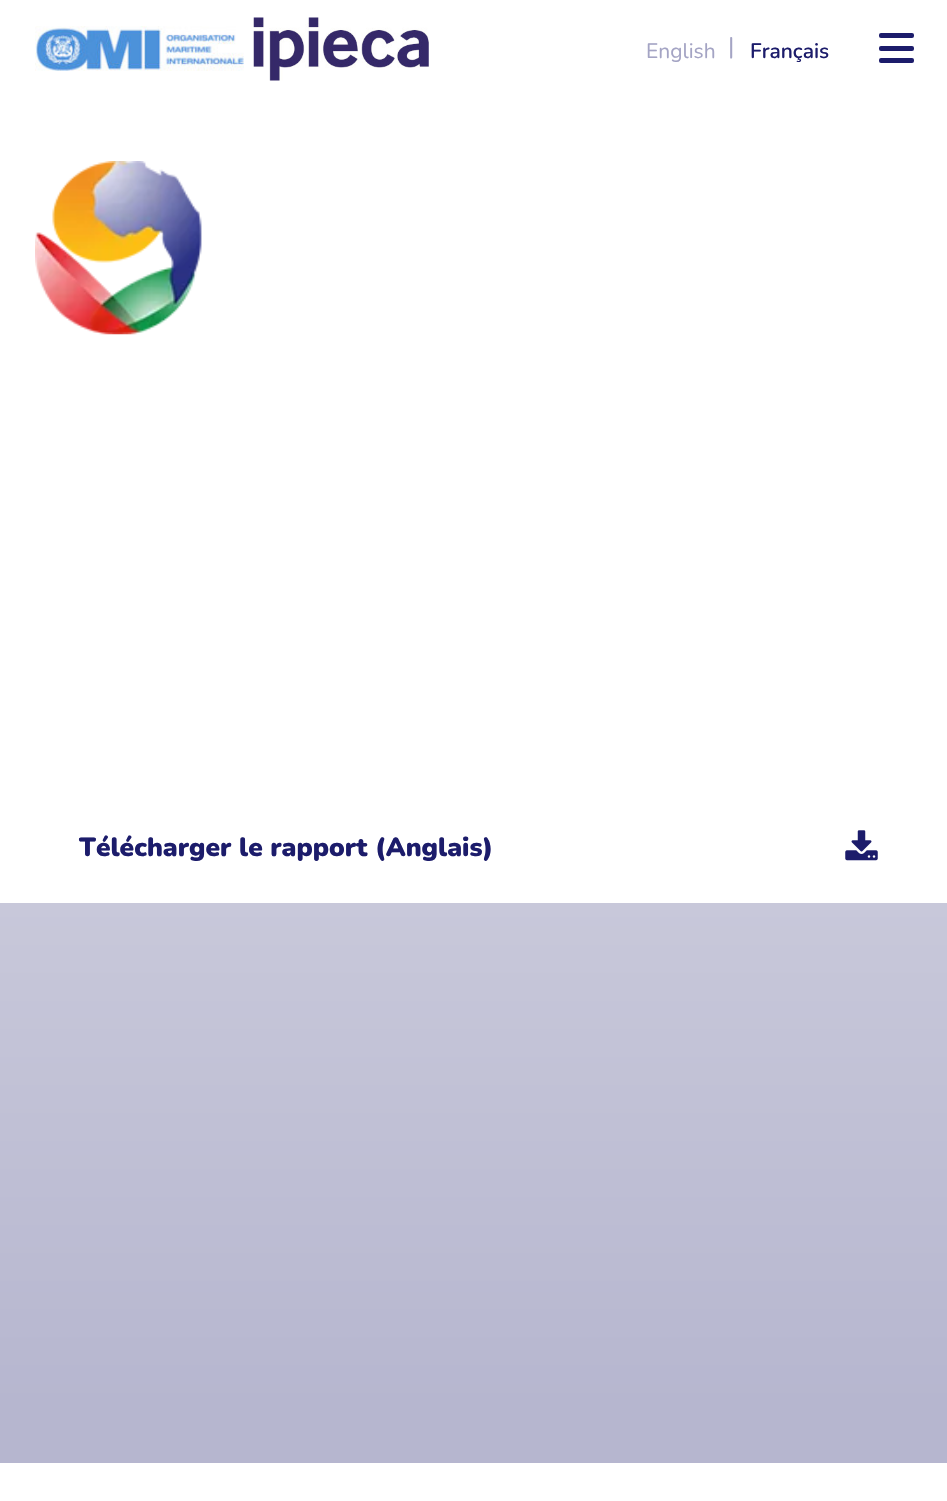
void draw(SkCanvas* canvas) {
    SkPaint paint;
    paint.setAntiAlias(true);
    canvas->clear(0xFFFFFFFF);
    canvas->drawImageRect(SkImages::DeferredFromEncodedData(SkData::MakeFromFileName("img1.png")), SkRect::MakeXYWH(35, 26, 209, 45), SkSamplingOptions());
    canvas->drawImageRect(SkImages::DeferredFromEncodedData(SkData::MakeFromFileName("img2.png")), SkRect::MakeXYWH(253, 17, 176, 64), SkSamplingOptions());
    SkFont font1(fontMgr->matchFamilyStyle("Nunito", SkFontStyle::Normal()), 21);
    font1.setSubpixel(true);
    paint.setColor(0xFFA4A4C4);
    canvas->drawString("English", 646, 58, font1, paint);
    SkFont font2(fontMgr->matchFamilyStyle("Nunito", SkFontStyle::Normal()), 24);
    font2.setSubpixel(true);
    canvas->drawString("|", 728, 54, font2, paint);
    SkFont font3(fontMgr->matchFamilyStyle("Nunito", SkFontStyle(600, SkFontStyle::kNormal_Width, SkFontStyle::kUpright_Slant)), 21);
    font3.setSubpixel(true);
    paint.setColor(0xFF1C1C6B);
    canvas->drawString("Français", 750, 58, font3, paint);
    canvas->drawRoundRect(SkRect::MakeXYWH(879, 46, 35, 5), 2, 2, paint);
    canvas->drawRoundRect(SkRect::MakeXYWH(879, 33, 35, 5), 2, 2, paint);
    canvas->drawRoundRect(SkRect::MakeXYWH(879, 58, 35, 5), 2, 2, paint);
    canvas->drawImageRect(SkImages::DeferredFromEncodedData(SkData::MakeFromFileName("img3.png")), SkRect::MakeXYWH(35, 161, 167, 174), SkSamplingOptions());
    SkFont font4(fontMgr->matchFamilyStyle("Nunito", SkFontStyle(900, SkFontStyle::kNormal_Width, SkFontStyle::kUpright_Slant)), 26.25f);
    font4.setSubpixel(true);
    canvas->drawString("Télécharger le rapport (Anglais)", 79, 856, font4, paint);
    canvas->drawImageRect(SkImages::DeferredFromEncodedData(SkData::MakeFromFileName("img4.png")), SkRect::MakeXYWH(845, 830, 33, 31), SkSamplingOptions());
    {
        const SkColor colors[] = {0xFFC8C8DA, 0xFFB6B6CF};
        const float stops[] = {0, 0.9f};
        const SkPoint ends[] = {{474, 903}, {474, 1463}};
        paint.setShader(SkGradientShader::MakeLinear(ends, colors, stops, 2, SkTileMode::kClamp));
        paint.setAlpha(255);
    }
    canvas->drawRect(SkRect::MakeXYWH(0, 903, 947, 560), paint);
}
